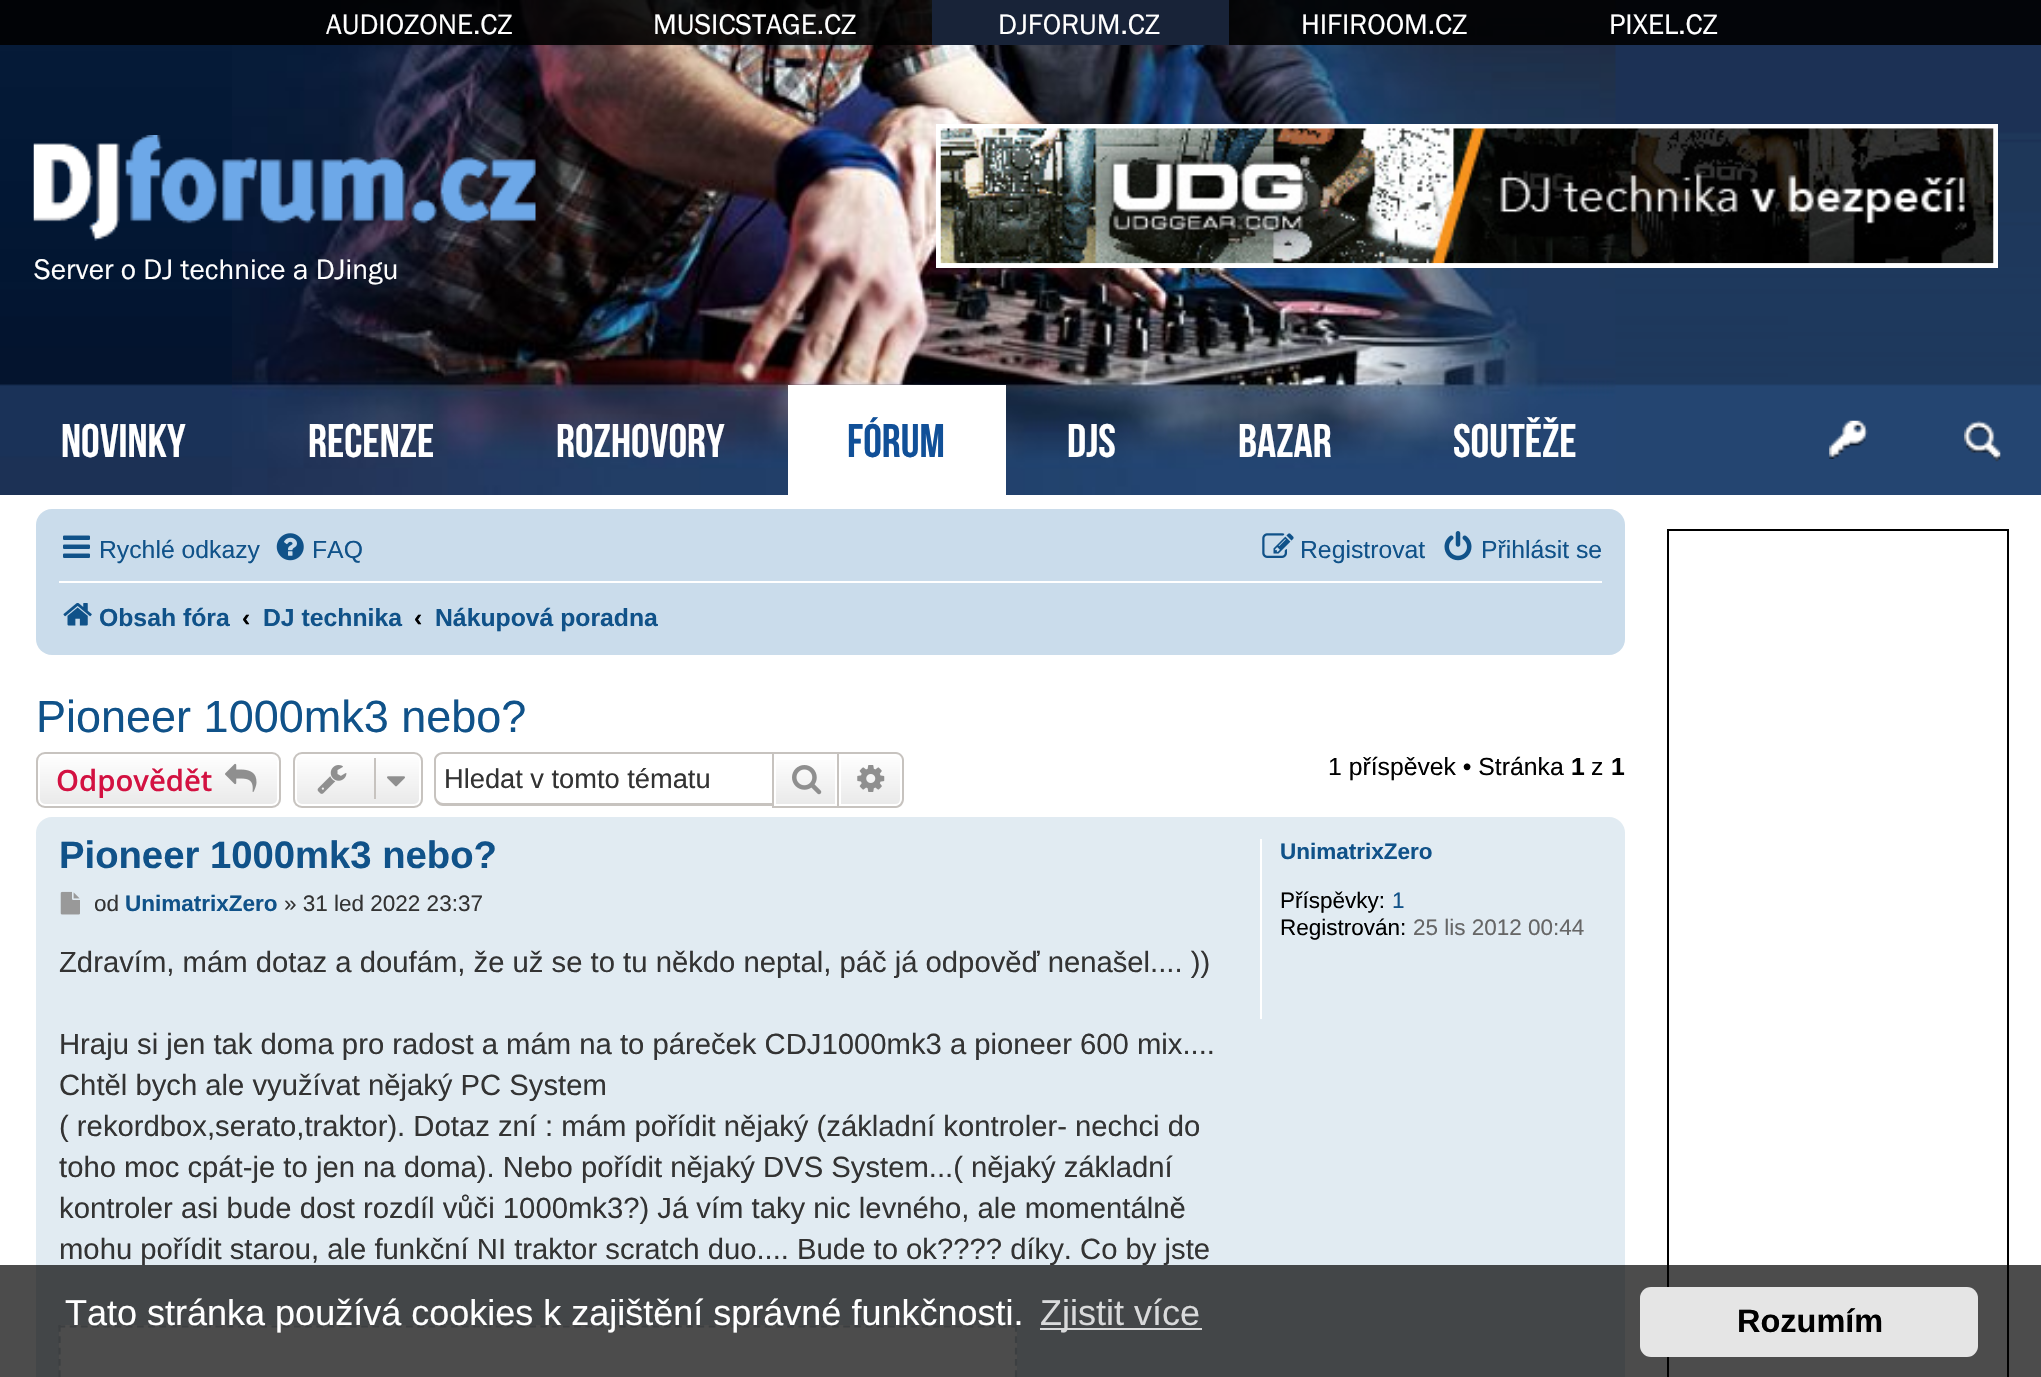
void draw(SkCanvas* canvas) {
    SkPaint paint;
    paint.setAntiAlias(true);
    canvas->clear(0xFFFFFFFF);
    canvas->drawImageRect(SkImages::DeferredFromEncodedData(SkData::MakeFromFileName("img1.png")), SkRect::MakeXYWH(0, 0, 2041, 495), SkSamplingOptions());
    canvas->drawImageRect(SkImages::DeferredFromEncodedData(SkData::MakeFromFileName("img2.png")), SkRect::MakeXYWH(232, 0, 1384, 495), SkSamplingOptions());
    paint.setColor(0xE6000000);
    canvas->drawRect(SkRect::MakeXYWH(0, 0, 2041, 45), paint);
    SkFont font1(fontMgr->matchFamilyStyle("Franklin Gothic", SkFontStyle::Normal()), 29.25f);
    font1.setSubpixel(true);
    paint.setColor(0xFFFFFFFF);
    canvas->drawString("AUDIOZONE.CZ", 326, 34, font1, paint);
    canvas->drawString("MUSICSTAGE.CZ", 653, 34, font1, paint);
    paint.setColor(0xFF182338);
    canvas->drawRect(SkRect::MakeXYWH(932, 0, 297, 45), paint);
    paint.setColor(0xFFFFFFFF);
    canvas->drawString("DJFORUM.CZ", 998, 34, font1, paint);
    canvas->drawString("HIFIROOM.CZ", 1301, 34, font1, paint);
    canvas->drawString("PIXEL.CZ", 1609, 34, font1, paint);
    paint.setStyle(SkPaint::kStroke_Style);
    paint.setStrokeWidth(5);
    canvas->drawRect(SkRect::MakeXYWH(938.5f, 126.5f, 1057, 139), paint);
    canvas->drawImageRect(SkImages::DeferredFromEncodedData(SkData::MakeFromFileName("img3.png")), SkRect::MakeXYWH(940, 128, 1054, 136), SkSamplingOptions());
    canvas->drawImageRect(SkImages::DeferredFromEncodedData(SkData::MakeFromFileName("img4.png")), SkRect::MakeXYWH(33, 135, 503, 106), SkSamplingOptions());
    paint.setStyle(SkPaint::kFill_Style);
    canvas->drawString("Server o DJ technice a DJingu", 34, 279, font1, paint);
    SkFont font2(fontMgr->matchFamilyStyle("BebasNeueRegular", SkFontStyle::Normal()), 47);
    font2.setSubpixel(true);
    canvas->drawString("NOVINKY", 61, 457, font2, paint);
    canvas->drawString("RECENZE", 308, 457, font2, paint);
    canvas->drawString("ROZHOVORY", 556, 457, font2, paint);
    canvas->drawRect(SkRect::MakeXYWH(788, 385, 218, 110), paint);
    paint.setColor(0xFF115098);
    canvas->drawString("FÓRUM", 847, 457, font2, paint);
    paint.setColor(0xFFFFFFFF);
    canvas->drawString("DJS", 1067, 457, font2, paint);
    canvas->drawString("BAZAR", 1238, 457, font2, paint);
    canvas->drawString("SOUTĚŽE", 1453, 457, font2, paint);
    canvas->drawImageRect(SkImages::DeferredFromEncodedData(SkData::MakeFromFileName("img5.png")), SkRect::MakeXYWH(1829, 420, 39, 39), SkSamplingOptions());
    canvas->drawImageRect(SkImages::DeferredFromEncodedData(SkData::MakeFromFileName("img6.png")), SkRect::MakeXYWH(1964, 420, 37, 42), SkSamplingOptions());
    paint.setColor(0xFFCADCEB);
    canvas->drawRoundRect(SkRect::MakeXYWH(36, 509, 1589, 146), 16, 16, paint);
    canvas->drawImageRect(SkImages::DeferredFromEncodedData(SkData::MakeFromFileName("img7.png")), SkRect::MakeXYWH(63, 535, 27, 23), SkSamplingOptions());
    SkFont font3(fontMgr->matchFamilyStyle("Liberation Sans", SkFontStyle::Normal()), 24.75f);
    font3.setSubpixel(true);
    paint.setColor(0xFF105289);
    canvas->drawString("Rychlé odkazy", 99, 558, font3, paint);
    canvas->drawImageRect(SkImages::DeferredFromEncodedData(SkData::MakeFromFileName("img8.png")), SkRect::MakeXYWH(276, 533, 28, 28), SkSamplingOptions());
    canvas->drawString("FAQ", 312, 558, font3, paint);
    canvas->drawImageRect(SkImages::DeferredFromEncodedData(SkData::MakeFromFileName("img9.png")), SkRect::MakeXYWH(1262, 533, 32, 25), SkSamplingOptions());
    canvas->drawString("Registrovat", 1300, 558, font3, paint);
    canvas->drawImageRect(SkImages::DeferredFromEncodedData(SkData::MakeFromFileName("img10.png")), SkRect::MakeXYWH(1444, 531, 28, 30), SkSamplingOptions());
    canvas->drawString("Přihlásit se", 1481, 558, font3, paint);
    paint.setColor(0xFFFFFFFF);
    canvas->drawRect(SkRect::MakeXYWH(59, 581, 1543, 2), paint);
    canvas->drawImageRect(SkImages::DeferredFromEncodedData(SkData::MakeFromFileName("img11.png")), SkRect::MakeXYWH(63, 603, 29, 23), SkSamplingOptions());
    SkFont font4(fontMgr->matchFamilyStyle("Liberation Sans", SkFontStyle::Bold()), 24.75f);
    font4.setSubpixel(true);
    paint.setColor(0xFF105289);
    canvas->drawString("Obsah fóra", 99, 626, font4, paint);
    paint.setColor(0xFF000000);
    canvas->drawString("‹", 242, 626, font4, paint);
    paint.setColor(0xFF105289);
    canvas->drawString("DJ technika", 263, 626, font4, paint);
    paint.setColor(0xFF000000);
    canvas->drawString("‹", 414, 626, font4, paint);
    paint.setColor(0xFF105289);
    canvas->drawString("Nákupová poradna", 435, 626, font4, paint);
    SkFont font5(fontMgr->matchFamilyStyle("Liberation Sans", SkFontStyle::Normal()), 45);
    font5.setSubpixel(true);
    canvas->drawString("Pioneer 1000mk3 nebo?", 36, 732, font5, paint);
    canvas->save();
    canvas->clipPath(SkPathBuilder().moveTo(45, 752).lineTo(272, 752).cubicTo(277, 752, 281, 756, 281, 761).lineTo(281, 799).cubicTo(281, 804, 277, 808, 272, 808).lineTo(45, 808).cubicTo(40, 808, 36, 804, 36, 799).lineTo(36, 761).cubicTo(36, 756, 40, 752, 45, 752).close().detach(), true);
    {
        const SkColor colors[] = {0xFFFFFFFF, 0xFFE9E9E9};
        const float stops[] = {0, 1};
        const SkPoint ends[] = {{159, 754}, {159, 806}};
        paint.setShader(SkGradientShader::MakeLinear(ends, colors, stops, 2, SkTileMode::kClamp));
        paint.setAlpha(255);
    }
    canvas->drawRect(SkRect::MakeXYWH(36, 754, 245, 52), paint);
    canvas->restore();
    paint.setStyle(SkPaint::kStroke_Style);
    paint.setStrokeWidth(2);
    paint.setShader(nullptr);
    paint.setColor(0xFFFFFFFF);
    canvas->drawRoundRect(SkRect::MakeXYWH(39, 755, 239, 50), 6, 6, paint);
    paint.setColor(0xFFC7C3BF);
    canvas->drawRoundRect(SkRect::MakeXYWH(37, 753, 243, 54), 8, 8, paint);
    SkFont font6(fontMgr->matchFamilyStyle("Open Sans", SkFontStyle(600, SkFontStyle::kNormal_Width, SkFontStyle::kUpright_Slant)), 29.25f);
    font6.setSubpixel(true);
    paint.setStyle(SkPaint::kFill_Style);
    paint.setColor(0xFFD31141);
    canvas->drawString("Odpovědět", 56, 791, font6, paint);
    canvas->drawImageRect(SkImages::DeferredFromEncodedData(SkData::MakeFromFileName("img12.png")), SkRect::MakeXYWH(225, 763, 32, 29), SkSamplingOptions());
    canvas->save();
    canvas->clipPath(SkPathBuilder().moveTo(302, 752).lineTo(414, 752).cubicTo(419, 752, 423, 756, 423, 761).lineTo(423, 799).cubicTo(423, 804, 419, 808, 414, 808).lineTo(302, 808).cubicTo(297, 808, 293, 804, 293, 799).lineTo(293, 761).cubicTo(293, 756, 297, 752, 302, 752).close().detach(), true);
    {
        const SkColor colors[] = {0xFFFFFFFF, 0xFFE9E9E9};
        const float stops[] = {0, 1};
        const SkPoint ends[] = {{358, 754}, {358, 806}};
        paint.setShader(SkGradientShader::MakeLinear(ends, colors, stops, 2, SkTileMode::kClamp));
        paint.setAlpha(255);
    }
    canvas->drawRect(SkRect::MakeXYWH(293, 754, 130, 52), paint);
    canvas->restore();
    paint.setStyle(SkPaint::kStroke_Style);
    paint.setShader(nullptr);
    paint.setColor(0xFFFFFFFF);
    canvas->drawRoundRect(SkRect::MakeXYWH(296, 755, 124, 50), 6, 6, paint);
    paint.setColor(0xFFC7C3BF);
    canvas->drawRoundRect(SkRect::MakeXYWH(294, 753, 128, 54), 8, 8, paint);
    canvas->drawImageRect(SkImages::DeferredFromEncodedData(SkData::MakeFromFileName("img13.png")), SkRect::MakeXYWH(317, 765, 30, 29), SkSamplingOptions());
    paint.setStyle(SkPaint::kFill_Style);
    canvas->drawRect(SkRect::MakeXYWH(374, 758, 2, 41), paint);
    canvas->drawImageRect(SkImages::DeferredFromEncodedData(SkData::MakeFromFileName("img14.png")), SkRect::MakeXYWH(387, 776, 18, 11), SkSamplingOptions());
    canvas->drawPath(SkPathBuilder(SkPathFillType::kEvenOdd).moveTo(443, 752).lineTo(772, 752).lineTo(772, 806).lineTo(443, 806).cubicTo(438, 806, 434, 801, 434, 796).lineTo(434, 760).cubicTo(434, 756, 438, 752, 443, 752).close().moveTo(443, 754).lineTo(772, 754).lineTo(772, 803).lineTo(443, 803).cubicTo(440, 803, 436, 800, 436, 796).lineTo(436, 760).cubicTo(436, 757, 440, 754, 443, 754).close().detach(), paint);
    SkFont font7(fontMgr->matchFamilyStyle("Liberation Sans", SkFontStyle::Normal()), 27.25f);
    font7.setSubpixel(true);
    paint.setColor(0xFF333333);
    canvas->drawString("Hledat v tomto tématu", 444, 788, font7, paint);
    {
        const SkColor colors[] = {0xFFFFFFFF, 0xFFE9E9E9};
        const float stops[] = {0, 1};
        const SkPoint ends[] = {{806, 754}, {806, 806}};
        paint.setShader(SkGradientShader::MakeLinear(ends, colors, stops, 2, SkTileMode::kClamp));
        paint.setAlpha(255);
    }
    canvas->drawRect(SkRect::MakeXYWH(776, 760, 59, 44), paint);
    paint.setStyle(SkPaint::kStroke_Style);
    paint.setShader(nullptr);
    paint.setColor(0xFFC7C3BF);
    canvas->drawRect(SkRect::MakeXYWH(773, 753, 65, 54), paint);
    canvas->drawImageRect(SkImages::DeferredFromEncodedData(SkData::MakeFromFileName("img15.png")), SkRect::MakeXYWH(792, 765, 30, 30), SkSamplingOptions());
    paint.setStyle(SkPaint::kFill_Style);
    {
        const SkColor colors[] = {0xFFFFFFFF, 0xFFE9E9E9};
        const float stops[] = {0, 1};
        const SkPoint ends[] = {{871, 754}, {871, 806}};
        paint.setShader(SkGradientShader::MakeLinear(ends, colors, stops, 2, SkTileMode::kClamp));
        paint.setAlpha(255);
    }
    canvas->drawPath(SkPathBuilder().moveTo(840, 755).lineTo(895, 755).cubicTo(898.5f, 755, 901, 757.5f, 901, 761).lineTo(901, 799).cubicTo(901, 802.5f, 898.5f, 805, 895, 805).lineTo(840, 805).close().detach(), paint);
    paint.setStyle(SkPaint::kStroke_Style);
    paint.setShader(nullptr);
    paint.setColor(0xFFFFFFFF);
    canvas->drawPath(SkPathBuilder().moveTo(840, 755).lineTo(895, 755).cubicTo(898.5f, 755, 901, 757.5f, 901, 761).lineTo(901, 799).cubicTo(901, 802.5f, 898.5f, 805, 895, 805).lineTo(840, 805).close().detach(), paint);
    paint.setStyle(SkPaint::kFill_Style);
    paint.setColor(0xFFC7C3BF);
    canvas->drawPath(SkPathBuilder(SkPathFillType::kEvenOdd).moveTo(839, 752).lineTo(896, 752).cubicTo(900, 752, 904, 756, 904, 760).lineTo(904, 799).cubicTo(904, 804, 900, 808, 896, 808).lineTo(839, 808).close().moveTo(839, 754).lineTo(896, 754).cubicTo(899, 754, 902, 757, 902, 760).lineTo(902, 799).cubicTo(902, 802, 899, 806, 896, 806).lineTo(839, 806).close().detach(), paint);
    canvas->drawImageRect(SkImages::DeferredFromEncodedData(SkData::MakeFromFileName("img16.png")), SkRect::MakeXYWH(857, 765, 28, 27), SkSamplingOptions());
    paint.setColor(0xFF000000);
    canvas->drawString("1 příspěvek • Stránka", 1328, 775, font3, paint);
    canvas->drawString("1", 1571, 775, font4, paint);
    canvas->drawString("z", 1591, 775, font3, paint);
    canvas->drawString("1", 1611, 775, font4, paint);
    paint.setColor(0xFFE1EBF2);
    canvas->drawRoundRect(SkRect::MakeXYWH(36, 817, 1589, 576), 16, 16, paint);
    SkFont font8(fontMgr->matchFamilyStyle("Liberation Sans", SkFontStyle::Bold()), 38.25f);
    font8.setSubpixel(true);
    paint.setColor(0xFF105289);
    canvas->drawString("Pioneer 1000mk3 nebo?", 59, 868, font8, paint);
    canvas->drawImageRect(SkImages::DeferredFromEncodedData(SkData::MakeFromFileName("img17.png")), SkRect::MakeXYWH(60, 891, 20, 24), SkSamplingOptions());
    SkFont font9(fontMgr->matchFamilyStyle("Liberation Sans", SkFontStyle::Normal()), 22.5f);
    font9.setSubpixel(true);
    paint.setColor(0xFF333333);
    canvas->drawString("od", 94, 911, font9, paint);
    SkFont font10(fontMgr->matchFamilyStyle("Liberation Sans", SkFontStyle::Bold()), 22.5f);
    font10.setSubpixel(true);
    paint.setColor(0xFF105289);
    canvas->drawString("UnimatrixZero", 125, 911, font10, paint);
    paint.setColor(0xFF333333);
    canvas->drawString("» 31 led 2022 23:37", 284, 911, font9, paint);
    SkFont font11(fontMgr->matchFamilyStyle("Liberation Sans", SkFontStyle::Normal()), 29.25f);
    font11.setSubpixel(true);
    canvas->drawString("Zdravím, mám dotaz a doufám, že už se to tu někdo neptal, páč já odpověď nenašel.... ))", 59, 972, font11, paint);
    canvas->drawString("Hraju si jen tak doma pro radost a mám na to páreček CDJ1000mk3 a pioneer 600 mix....", 59, 1054, font11, paint);
    canvas->drawString("Chtěl bych ale využívat nějaký PC System", 59, 1095, font11, paint);
    canvas->drawString("( rekordbox,serato,traktor). Dotaz zní : mám pořídit nějaký (základní kontroler- nechci do", 59, 1136, font11, paint);
    canvas->drawString("toho moc cpát-je to jen na doma). Nebo pořídit nějaký DVS System...( nějaký základní", 59, 1177, font11, paint);
    canvas->drawString("kontroler asi bude dost rozdíl vůči 1000mk3?) Já vím taky nic levného, ale momentálně", 59, 1218, font11, paint);
    canvas->drawString("mohu pořídit starou, ale funkční NI traktor scratch duo.... Bude to ok?\077?\077 díky. Co by jste", 59, 1259, font11, paint);
    paint.setColor(0xFFFFFFFF);
    canvas->drawRect(SkRect::MakeXYWH(59, 1325, 958, 52), paint);
    paint.setStyle(SkPaint::kStroke_Style);
    paint.setStrokeWidth(2.2f);
    paint.setColor(0xFFC9D2D8);
    paint.setPathEffect(SkDashPathEffect::Make({{6.75f, 4.46f}}, 0));
    canvas->drawPath(SkPathBuilder().moveTo(58.5f, 1326.5f).lineTo(1017, 1326.5f).detach(), paint);
    paint.setPathEffect(nullptr);
    paint.setPathEffect(SkDashPathEffect::Make({{6.75f, 4.57f}}, 0));
    canvas->drawPath(SkPathBuilder().moveTo(1016, 1325).lineTo(1016, 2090).detach(), paint);
    paint.setPathEffect(nullptr);
    paint.setPathEffect(SkDashPathEffect::Make({{6.75f, 4.57f}}, 0));
    canvas->drawPath(SkPathBuilder().moveTo(59.5f, 1325).lineTo(59.5f, 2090).detach(), paint);
    paint.setPathEffect(nullptr);
    paint.setStyle(SkPaint::kFill_Style);
    paint.setColor(0xFFFFFFFF);
    canvas->drawRect(SkRect::MakeXYWH(1260, 839, 2, 180), paint);
    paint.setColor(0xFF105289);
    canvas->drawString("UnimatrixZero", 1280, 859, font10, paint);
    paint.setColor(0xFF000000);
    canvas->drawString("Příspěvky:", 1280, 908, font9, paint);
    paint.setColor(0xFF105289);
    canvas->drawString("1", 1392, 908, font9, paint);
    paint.setColor(0xFF000000);
    canvas->drawString("Registrován:", 1280, 935, font9, paint);
    paint.setColor(0xFF666666);
    canvas->drawString("25 lis 2012 00:44", 1413, 935, font9, paint);
    paint.setStyle(SkPaint::kStroke_Style);
    paint.setStrokeWidth(2);
    paint.setColor(0xFF000000);
    canvas->drawRect(SkRect::MakeXYWH(1668, 530, 340, 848), paint);
    paint.setStyle(SkPaint::kFill_Style);
    paint.setColor(0xB3000000);
    canvas->drawRect(SkRect::MakeXYWH(0, 1265, 2041, 112), paint);
    SkFont font12(fontMgr->matchFamilyStyle("Liberation Sans", SkFontStyle::Normal()), 36);
    font12.setSubpixel(true);
    paint.setColor(0xFFFFFFFF);
    canvas->drawString("Tato stránka používá cookies k zajištění správné funkčnosti.", 65, 1325, font12, paint);
    paint.setColor(0xFFD9DADB);
    canvas->drawRect(SkRect::MakeXYWH(1040, 1328, 162, 2), paint);
    canvas->drawString("Zjistit více", 1040, 1325, font12, paint);
    paint.setColor(0xFFE5E5E5);
    canvas->drawRoundRect(SkRect::MakeXYWH(1640, 1287, 338, 70), 11, 11, paint);
    SkFont font13(fontMgr->matchFamilyStyle("Liberation Sans", SkFontStyle::Bold()), 32.5f);
    font13.setSubpixel(true);
    paint.setColor(0xFF000000);
    canvas->drawString("Rozumím", 1737, 1332, font13, paint);
}
